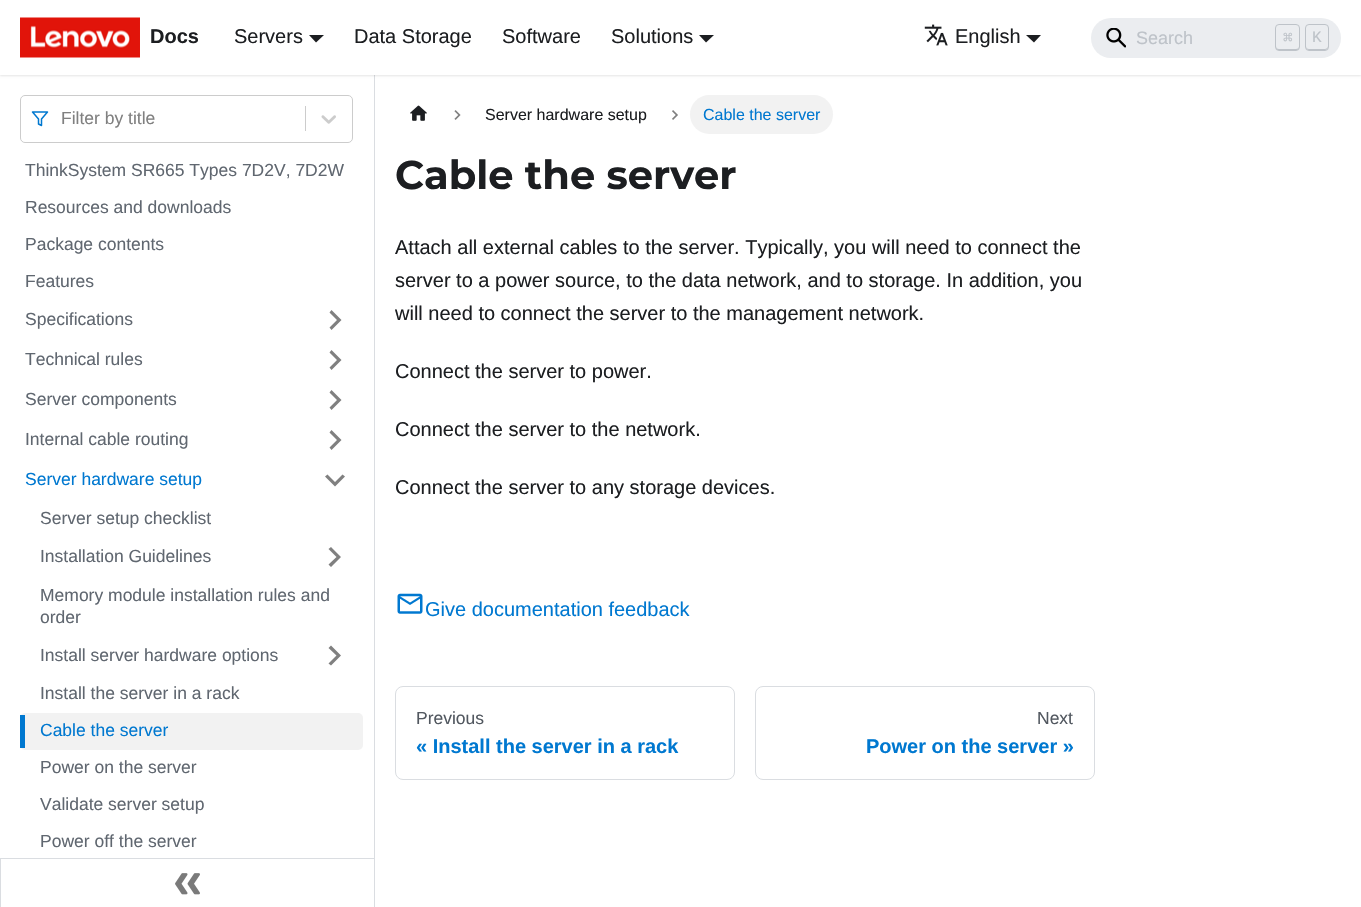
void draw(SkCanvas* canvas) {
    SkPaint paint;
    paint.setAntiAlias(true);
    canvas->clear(0xFFFFFFFF);
    paint.setColor(0xFFDADDE1);
    canvas->drawRect(SkRect::MakeXYWH(374, 75, 1, 783), paint);
    paint.setColor(0x1A000000);
    paint.setMaskFilter(SkMaskFilter::MakeBlur(kNormal_SkBlurStyle, 1));
    canvas->drawRect(SkRect::MakeXYWH(0, 1, 1361, 75), paint);
    paint.setMaskFilter(nullptr);
    paint.setColor(0xFFFFFFFF);
    canvas->drawRect(SkRect::MakeXYWH(0, 0, 1361, 75), paint);
    canvas->drawImageRect(SkImages::DeferredFromEncodedData(SkData::MakeFromFileName("img1.png")), SkRect::MakeXYWH(20, 17, 120, 41), SkSamplingOptions());
    SkFont font1(fontMgr->matchFamilyStyle("Liberation Sans", SkFontStyle::Bold()), 20);
    font1.setSubpixel(true);
    paint.setColor(0xFF1C1E21);
    canvas->drawString("Docs", 150, 43, font1, paint);
    SkFont font2(fontMgr->matchFamilyStyle("Liberation Sans", SkFontStyle::Normal()), 20);
    font2.setSubpixel(true);
    canvas->drawString("Servers", 234, 43, font2, paint);
    canvas->drawPath(SkPathBuilder().moveTo(309, 35).lineTo(324, 35).lineTo(316, 42.5f).close().detach(), paint);
    canvas->drawString("Data Storage", 354, 43, font2, paint);
    canvas->drawString("Software", 502, 43, font2, paint);
    canvas->drawString("Solutions", 611, 43, font2, paint);
    canvas->drawPath(SkPathBuilder().moveTo(699, 35).lineTo(714, 35).lineTo(706, 42.5f).close().detach(), paint);
    canvas->drawImageRect(SkImages::DeferredFromEncodedData(SkData::MakeFromFileName("img2.png")), SkRect::MakeXYWH(924, 24, 24, 22), SkSamplingOptions());
    canvas->drawString("English", 955, 43, font2, paint);
    canvas->drawPath(SkPathBuilder().moveTo(1026, 35).lineTo(1041, 35).lineTo(1034, 42.5f).close().detach(), paint);
    paint.setColor(0xFFEBEDF0);
    canvas->drawRoundRect(SkRect::MakeXYWH(1091, 18, 250, 40), 20, 20, paint);
    canvas->drawImageRect(SkImages::DeferredFromEncodedData(SkData::MakeFromFileName("img3.png")), SkRect::MakeXYWH(1106, 28, 20, 20), SkSamplingOptions());
    SkFont font3(fontMgr->matchFamilyStyle("Liberation Sans", SkFontStyle::Normal()), 18);
    font3.setSubpixel(true);
    paint.setColor(0xFFBEC3C9);
    canvas->drawString("Search", 1136, 44, font3, paint);
    canvas->drawPath(SkPathBuilder().moveTo(1276, 46).cubicTo(1276, 50.5f, 1277.5f, 50, 1281.5f, 50).lineTo(1293.5f, 50).cubicTo(1297.5f, 50, 1299, 50.5f, 1299, 46).cubicTo(1299, 48, 1298, 49, 1296, 49).lineTo(1279, 49).cubicTo(1277, 49, 1276, 48, 1276, 46).close().detach(), paint);
    paint.setStyle(SkPaint::kStroke_Style);
    paint.setStrokeWidth(1);
    canvas->drawRoundRect(SkRect::MakeXYWH(1275.5f, 24.5f, 24, 26), 3.5f, 3.5f, paint);
    SkFont font4(fontMgr->matchFamilyStyle("DejaVu Sans Mono", SkFontStyle::Normal()), 16);
    font4.setSubpixel(true);
    paint.setStyle(SkPaint::kFill_Style);
    canvas->drawString("⌘", 1283, 43, font4, paint);
    canvas->drawPath(SkPathBuilder().moveTo(1306, 46).cubicTo(1306, 50, 1307.5f, 50, 1311.5f, 50).lineTo(1322.5f, 50).cubicTo(1326.5f, 50, 1328, 50, 1328, 46).cubicTo(1328, 48, 1326, 49, 1325, 49).lineTo(1309, 49).cubicTo(1307, 49, 1306, 48, 1306, 46).close().detach(), paint);
    paint.setStyle(SkPaint::kStroke_Style);
    canvas->drawRoundRect(SkRect::MakeXYWH(1305.5f, 24.5f, 23, 26), 3.5f, 3.5f, paint);
    SkFont font5(fontMgr->matchFamilyStyle("Liberation Mono", SkFontStyle::Normal()), 16);
    font5.setSubpixel(true);
    paint.setStyle(SkPaint::kFill_Style);
    canvas->drawString("K", 1312, 42, font5, paint);
    paint.setStyle(SkPaint::kStroke_Style);
    paint.setColor(0xFFCCCCCC);
    canvas->drawRoundRect(SkRect::MakeXYWH(20.5f, 95.5f, 332, 47), 4.5f, 4.5f, paint);
    paint.setStrokeWidth(1.5f);
    paint.setStrokeCap(SkPaint::kRound_Cap);
    paint.setStrokeJoin(SkPaint::kRound_Join);
    paint.setColor(0xFF0078D0);
    canvas->drawPath(SkPathBuilder().moveTo(47.5f, 112).lineTo(32.5f, 112).lineTo(38.5f, 119).lineTo(38.5f, 124).lineTo(41.5f, 125.5f).lineTo(41.5f, 119).close().detach(), paint);
    SkFont font6(fontMgr->matchFamilyStyle("Liberation Sans", SkFontStyle::Normal()), 17.5f);
    font6.setSubpixel(true);
    paint.setStyle(SkPaint::kFill_Style);
    paint.setColor(0xFF808080);
    canvas->drawString("Filter by title", 61, 124, font6, paint);
    paint.setColor(0xFFCCCCCC);
    canvas->drawRect(SkRect::MakeXYWH(305, 106, 1, 25), paint);
    canvas->drawImageRect(SkImages::DeferredFromEncodedData(SkData::MakeFromFileName("img4.png")), SkRect::MakeXYWH(321, 115, 15, 9), SkSamplingOptions());
    paint.setColor(0xFF606770);
    canvas->drawString("ThinkSystem SR665 Types 7D2V, 7D2W", 25, 176, font6, paint);
    canvas->drawString("Resources and downloads", 25, 213, font6, paint);
    canvas->drawString("Package contents", 25, 250, font6, paint);
    canvas->drawString("Features", 25, 287, font6, paint);
    canvas->drawString("Specifications", 25, 325, font6, paint);
    paint.setColor(0xFF808080);
    canvas->drawPath(SkPathBuilder().moveTo(329.5f, 312.5f).lineTo(337, 320).lineTo(329.5f, 327.5f).lineTo(331.5f, 330).lineTo(341.5f, 320).lineTo(331.5f, 310).close().detach(), paint);
    paint.setColor(0xFF606770);
    canvas->drawString("Technical rules", 25, 365, font6, paint);
    paint.setColor(0xFF808080);
    canvas->drawPath(SkPathBuilder().moveTo(329.5f, 352.5f).lineTo(337, 360).lineTo(329.5f, 367.5f).lineTo(331.5f, 370).lineTo(341.5f, 360).lineTo(331.5f, 350).close().detach(), paint);
    paint.setColor(0xFF606770);
    canvas->drawString("Server components", 25, 405, font6, paint);
    paint.setColor(0xFF808080);
    canvas->drawPath(SkPathBuilder().moveTo(329.5f, 392.5f).lineTo(337, 400).lineTo(329.5f, 407.5f).lineTo(331.5f, 410).lineTo(341.5f, 400).lineTo(331.5f, 390).close().detach(), paint);
    paint.setColor(0xFF606770);
    canvas->drawString("Internal cable routing", 25, 445, font6, paint);
    paint.setColor(0xFF808080);
    canvas->drawPath(SkPathBuilder().moveTo(329.5f, 432.5f).lineTo(337, 440).lineTo(329.5f, 447.5f).lineTo(331.5f, 450).lineTo(341.5f, 440).lineTo(331.5f, 430).close().detach(), paint);
    paint.setColor(0xFF0078D0);
    canvas->drawString("Server hardware setup", 25, 485, font6, paint);
    paint.setColor(0xFF808080);
    canvas->drawPath(SkPathBuilder().moveTo(342.5f, 474.5f).lineTo(335, 482).lineTo(327.5f, 474.5f).lineTo(325, 476.5f).lineTo(335, 486.5f).lineTo(345, 476.5f).close().detach(), paint);
    paint.setColor(0xFF606770);
    canvas->drawString("Server setup checklist", 40, 524, font6, paint);
    canvas->drawString("Installation Guidelines", 40, 562, font6, paint);
    paint.setColor(0xFF808080);
    canvas->drawPath(SkPathBuilder().moveTo(328.5f, 549).lineTo(336.5f, 557).lineTo(328.5f, 564.5f).lineTo(331, 567).lineTo(341, 557).lineTo(331, 547).close().detach(), paint);
    paint.setColor(0xFF606770);
    canvas->drawString("Memory module installation rules and", 40, 601, font6, paint);
    canvas->drawString("order", 40, 623, font6, paint);
    canvas->drawString("Install server hardware options", 40, 661, font6, paint);
    paint.setColor(0xFF808080);
    canvas->drawPath(SkPathBuilder().moveTo(328.5f, 648).lineTo(336.5f, 655.5f).lineTo(328.5f, 663.5f).lineTo(331, 665.5f).lineTo(341, 655.5f).lineTo(331, 645.5f).close().detach(), paint);
    paint.setColor(0xFF606770);
    canvas->drawString("Install the server in a rack", 40, 699, font6, paint);
    paint.setColor(0xFFF2F2F2);
    canvas->drawRoundRect(SkRect::MakeXYWH(20, 713, 343, 37), 5, 5, paint);
    paint.setColor(0xFF0078D0);
    canvas->drawRect(SkRect::MakeXYWH(20, 715, 5, 33), paint);
    canvas->drawString("Cable the server", 40, 736, font6, paint);
    paint.setColor(0xFF606770);
    canvas->drawString("Power on the server", 40, 773, font6, paint);
    canvas->drawString("Validate server setup", 40, 810, font6, paint);
    canvas->drawString("Power off the server", 40, 847, font6, paint);
    paint.setStyle(SkPaint::kStroke_Style);
    paint.setStrokeWidth(1);
    paint.setStrokeCap(SkPaint::kButt_Cap);
    paint.setStrokeJoin(SkPaint::kMiter_Join);
    paint.setColor(0xFFDADDE1);
    canvas->drawRect(SkRect::MakeXYWH(0.5f, 858.5f, 374, 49), paint);
    canvas->drawImageRect(SkImages::DeferredFromEncodedData(SkData::MakeFromFileName("img5.png")), SkRect::MakeXYWH(175, 873, 25, 22), SkSamplingOptions());
    canvas->drawImageRect(SkImages::DeferredFromEncodedData(SkData::MakeFromFileName("img6.png")), SkRect::MakeXYWH(410, 105, 17, 16), SkSamplingOptions());
    canvas->drawImageRect(SkImages::DeferredFromEncodedData(SkData::MakeFromFileName("img7.png")), SkRect::MakeXYWH(454, 110, 7, 10), SkSamplingOptions());
    SkFont font7(fontMgr->matchFamilyStyle("Liberation Sans", SkFontStyle::Normal()), 16);
    font7.setSubpixel(true);
    paint.setStyle(SkPaint::kFill_Style);
    paint.setColor(0xFF1C1E21);
    canvas->drawString("Server hardware setup", 485, 120, font7, paint);
    canvas->drawImageRect(SkImages::DeferredFromEncodedData(SkData::MakeFromFileName("img8.png")), SkRect::MakeXYWH(672, 110, 6, 10), SkSamplingOptions());
    paint.setColor(0xFFF2F2F2);
    canvas->drawRoundRect(SkRect::MakeXYWH(690, 95, 143, 39), 19.5f, 19.5f, paint);
    paint.setColor(0xFF0078D0);
    canvas->drawString("Cable the server", 703, 120, font7, paint);
    SkFont font8(fontMgr->matchFamilyStyle("Montserrat", SkFontStyle::Bold()), 40);
    font8.setSubpixel(true);
    paint.setColor(0xFF1C1E21);
    canvas->drawString("Cable the server", 395, 189, font8, paint);
    canvas->drawString("Attach all external cables to the server. Typically, you will need to connect the", 395, 254, font2, paint);
    canvas->drawString("server to a power source, to the data network, and to storage. In addition, you", 395, 287, font2, paint);
    canvas->drawString("will need to connect the server to the management network.", 395, 320, font2, paint);
    canvas->drawString("Connect the server to power.", 395, 378, font2, paint);
    canvas->drawString("Connect the server to the network.", 395, 436, font2, paint);
    canvas->drawString("Connect the server to any storage devices.", 395, 494, font2, paint);
    canvas->drawImageRect(SkImages::DeferredFromEncodedData(SkData::MakeFromFileName("img9.png")), SkRect::MakeXYWH(397, 593, 26, 21), SkSamplingOptions());
    paint.setColor(0xFF0078D0);
    canvas->drawString("Give documentation feedback", 425, 616, font2, paint);
    paint.setStyle(SkPaint::kStroke_Style);
    paint.setColor(0xFFDADDE1);
    canvas->drawRoundRect(SkRect::MakeXYWH(395.5f, 686.5f, 339, 93), 7.5f, 7.5f, paint);
    paint.setStyle(SkPaint::kFill_Style);
    paint.setColor(0xFF525860);
    canvas->drawString("Previous", 416, 724, font6, paint);
    paint.setColor(0xFF0078D0);
    canvas->drawString("« Install the server in a rack", 416, 753, font1, paint);
    paint.setStyle(SkPaint::kStroke_Style);
    paint.setColor(0xFFDADDE1);
    canvas->drawRoundRect(SkRect::MakeXYWH(755.5f, 686.5f, 339, 93), 7.5f, 7.5f, paint);
    paint.setStyle(SkPaint::kFill_Style);
    paint.setColor(0xFF525860);
    canvas->drawString("Next", 1037, 724, font6, paint);
    paint.setColor(0xFF0078D0);
    canvas->drawString("Power on the server »", 866, 753, font1, paint);
}
